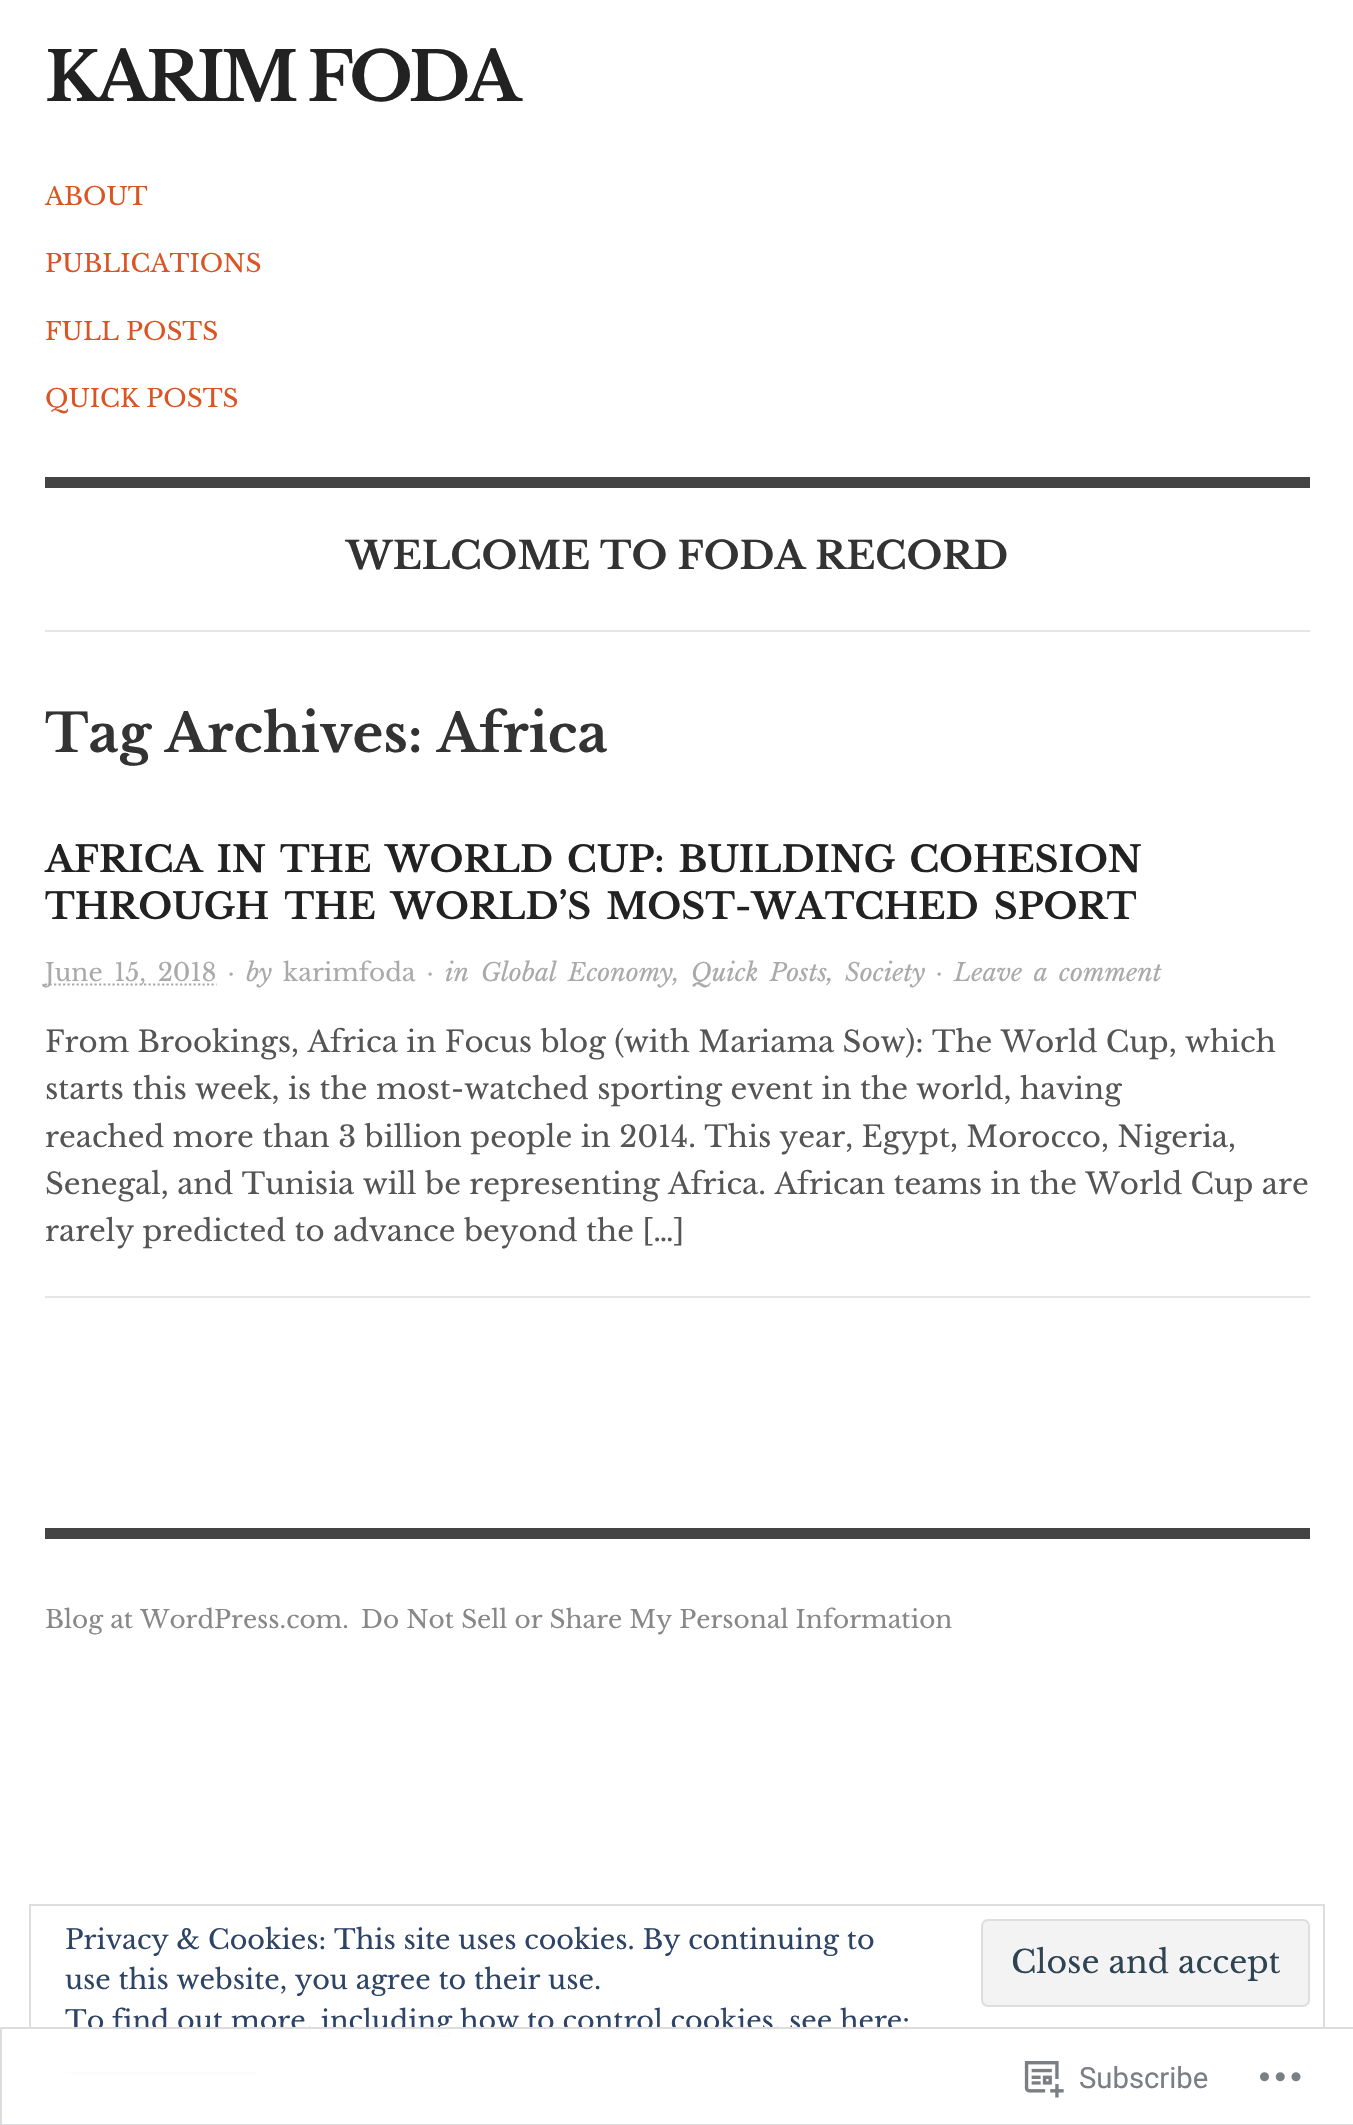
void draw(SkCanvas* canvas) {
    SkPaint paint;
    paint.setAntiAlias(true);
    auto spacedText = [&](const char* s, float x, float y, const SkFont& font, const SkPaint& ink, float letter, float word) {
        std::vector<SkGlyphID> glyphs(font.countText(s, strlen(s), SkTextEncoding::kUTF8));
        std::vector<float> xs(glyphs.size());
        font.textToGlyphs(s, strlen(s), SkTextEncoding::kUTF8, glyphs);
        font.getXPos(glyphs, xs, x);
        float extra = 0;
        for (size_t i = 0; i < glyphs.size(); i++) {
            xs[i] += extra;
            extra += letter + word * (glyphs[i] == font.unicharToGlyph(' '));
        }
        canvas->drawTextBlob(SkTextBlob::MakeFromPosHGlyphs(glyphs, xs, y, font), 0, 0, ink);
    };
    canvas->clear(0xFFFFFFFF);
    SkFont font1(fontMgr->matchFamilyStyle("Libre Baskerville", SkFontStyle::Bold()), 67.5f);
    font1.setSubpixel(true);
    paint.setColor(0xFF222222);
    spacedText("KARIM FODA", 45, 101, font1, paint, -4.5f, 0);
    SkFont font2(fontMgr->matchFamilyStyle("Libre Baskerville", SkFontStyle::Normal()), 24.75f);
    font2.setSubpixel(true);
    paint.setColor(0xFFDD5424);
    canvas->drawString("ABOUT", 45, 205, font2, paint);
    canvas->drawString("PUBLICATIONS", 45, 272, font2, paint);
    canvas->drawString("FULL POSTS", 45, 340, font2, paint);
    canvas->drawString("QUICK POSTS", 45, 407, font2, paint);
    paint.setColor(0xFF444444);
    canvas->drawRect(SkRect::MakeXYWH(45, 477, 1265, 11), paint);
    paint.setColor(0xFFE5E5E5);
    canvas->drawRect(SkRect::MakeXYWH(45, 630, 1265, 2), paint);
    SkFont font3(fontMgr->matchFamilyStyle("Libre Baskerville", SkFontStyle::Bold()), 38);
    font3.setSubpixel(true);
    paint.setColor(0xFF333333);
    canvas->drawString("WELCOME TO FODA RECORD", 346, 569, font3, paint);
    SkFont font4(fontMgr->matchFamilyStyle("Libre Baskerville", SkFontStyle::Bold()), 52.6f);
    font4.setSubpixel(true);
    canvas->drawString("Tag Archives: Africa", 45, 752, font4, paint);
    paint.setColor(0xFFE5E5E5);
    canvas->drawRect(SkRect::MakeXYWH(45, 1296, 1265, 2), paint);
    SkFont font5(fontMgr->matchFamilyStyle("Libre Baskerville", SkFontStyle::Bold()), 36);
    font5.setSubpixel(true);
    paint.setColor(0xFF222222);
    spacedText("AFRICA IN THE WORLD CUP: BUILDING COHESION", 45, 872, font5, paint, 0, 4.5f);
    spacedText("THROUGH THE WORLD’S MOST-WATCHED SPORT", 45, 919, font5, paint, 0, 5.5f);
    paint.setStyle(SkPaint::kStroke_Style);
    paint.setStrokeWidth(2.2f);
    paint.setColor(0xFFAAAAAA);
    paint.setPathEffect(SkDashPathEffect::Make({{2.25f, 2.25f}}, 0));
    canvas->drawPath(SkPathBuilder().moveTo(45, 984.5f).lineTo(216.5f, 984.5f).detach(), paint);
    paint.setPathEffect(nullptr);
    paint.setStyle(SkPaint::kFill_Style);
    spacedText("June 15, 2018", 45, 981, font2, paint, 0, 4.5f);
    SkFont font6(fontMgr->matchFamilyStyle("Libre Baskerville", SkFontStyle::Italic()), 24.75f);
    font6.setSubpixel(true);
    canvas->drawString("·", 228, 981, font6, paint);
    canvas->drawString("by", 246, 981, font6, paint);
    canvas->drawString("karimfoda", 283, 981, font2, paint);
    canvas->drawString("·", 427, 981, font6, paint);
    canvas->drawString("in", 445, 981, font6, paint);
    spacedText("Global Economy", 481, 981, font6, paint, 0, 4.5f);
    spacedText("Quick Posts", 691, 981, font6, paint, 0, 4.5f);
    canvas->drawString("Society", 845, 981, font6, paint);
    canvas->drawString("·", 936, 981, font6, paint);
    spacedText("Leave a comment", 954, 981, font6, paint, 0, 4.5f);
    canvas->drawString(",", 673, 981, font6, paint);
    canvas->drawString(",", 827, 981, font6, paint);
    SkFont font7(fontMgr->matchFamilyStyle("Libre Baskerville", SkFontStyle::Normal()), 29.25f);
    font7.setSubpixel(true);
    paint.setColor(0xFF555555);
    canvas->drawString("From Brookings, Africa in Focus blog (with Mariama Sow): The World Cup, which", 45, 1052, font7, paint);
    canvas->drawString("starts this week, is the most-watched sporting event in the world, having", 45, 1099, font7, paint);
    canvas->drawString("reached more than 3 billion people in 2014. This year, Egypt, Morocco, Nigeria,", 45, 1147, font7, paint);
    canvas->drawString("Senegal, and Tunisia will be representing Africa. African teams in the World Cup are", 45, 1194, font7, paint);
    canvas->drawString("rarely predicted to advance beyond the […]", 45, 1241, font7, paint);
    paint.setColor(0xFF444444);
    canvas->drawRect(SkRect::MakeXYWH(45, 1528, 1265, 11), paint);
    paint.setColor(0xFF888888);
    canvas->drawString("Blog at WordPress.com.", 45, 1628, font2, paint);
    canvas->drawString("Do Not Sell or Share My Personal Information", 361, 1628, font2, paint);
    paint.setStyle(SkPaint::kStroke_Style);
    paint.setStrokeWidth(2);
    paint.setColor(0xFFDEDEDE);
    canvas->drawRect(SkRect::MakeXYWH(30, 1905, 1294, 191), paint);
    SkFont font8(fontMgr->matchFamilyStyle("Libre Baskerville", SkFontStyle::Normal()), 27);
    font8.setSubpixel(true);
    paint.setStyle(SkPaint::kFill_Style);
    paint.setColor(0xFF2E4467);
    canvas->drawString("Privacy & Cookies: This site uses cookies. By continuing to", 65, 1949, font8, paint);
    canvas->drawString("use this website, you agree to their use.", 65, 1989, font8, paint);
    paint.setColor(0xFFF3F3F3);
    canvas->drawRoundRect(SkRect::MakeXYWH(982, 1920, 327, 86), 6, 6, paint);
    paint.setStyle(SkPaint::kStroke_Style);
    paint.setColor(0xFFDEDEDE);
    canvas->drawRoundRect(SkRect::MakeXYWH(982, 1920, 327, 86), 6, 6, paint);
    SkFont font9(fontMgr->matchFamilyStyle("Libre Baskerville", SkFontStyle::Normal()), 31.5f);
    font9.setSubpixel(true);
    paint.setStyle(SkPaint::kFill_Style);
    paint.setColor(0xFF2E4453);
    canvas->drawString("Close and accept", 1011, 1973, font9, paint);
    paint.setColor(0xFF2E4467);
    canvas->drawString("To find out more, including how to control cookies, see here:", 65, 2030, font8, paint);
    canvas->drawRect(SkRect::MakeXYWH(65, 2072, 192, 2), paint);
    paint.setColor(0xFAFFFFFF);
    canvas->drawRect(SkRect::MakeXYWH(29, 2027, 1296, 70), paint);
    paint.setStyle(SkPaint::kStroke_Style);
    paint.setColor(0xFADCDCDE);
    canvas->drawRect(SkRect::MakeXYWH(1, 2028, 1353, 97), paint);
    canvas->drawImageRect(SkImages::DeferredFromEncodedData(SkData::MakeFromFileName("img1.png")), SkRect::MakeXYWH(1024, 2061, 40, 37), SkSamplingOptions());
    SkFont font10(fontMgr->matchFamilyStyle("Roboto", SkFontStyle::Normal()), 29.25f);
    font10.setSubpixel(true);
    paint.setStyle(SkPaint::kFill_Style);
    paint.setColor(0xFF7B7F85);
    canvas->drawString("Subscribe", 1079, 2088, font10, paint);
    canvas->drawImageRect(SkImages::DeferredFromEncodedData(SkData::MakeFromFileName("img2.png")), SkRect::MakeXYWH(1260, 2072, 41, 10), SkSamplingOptions());
}
